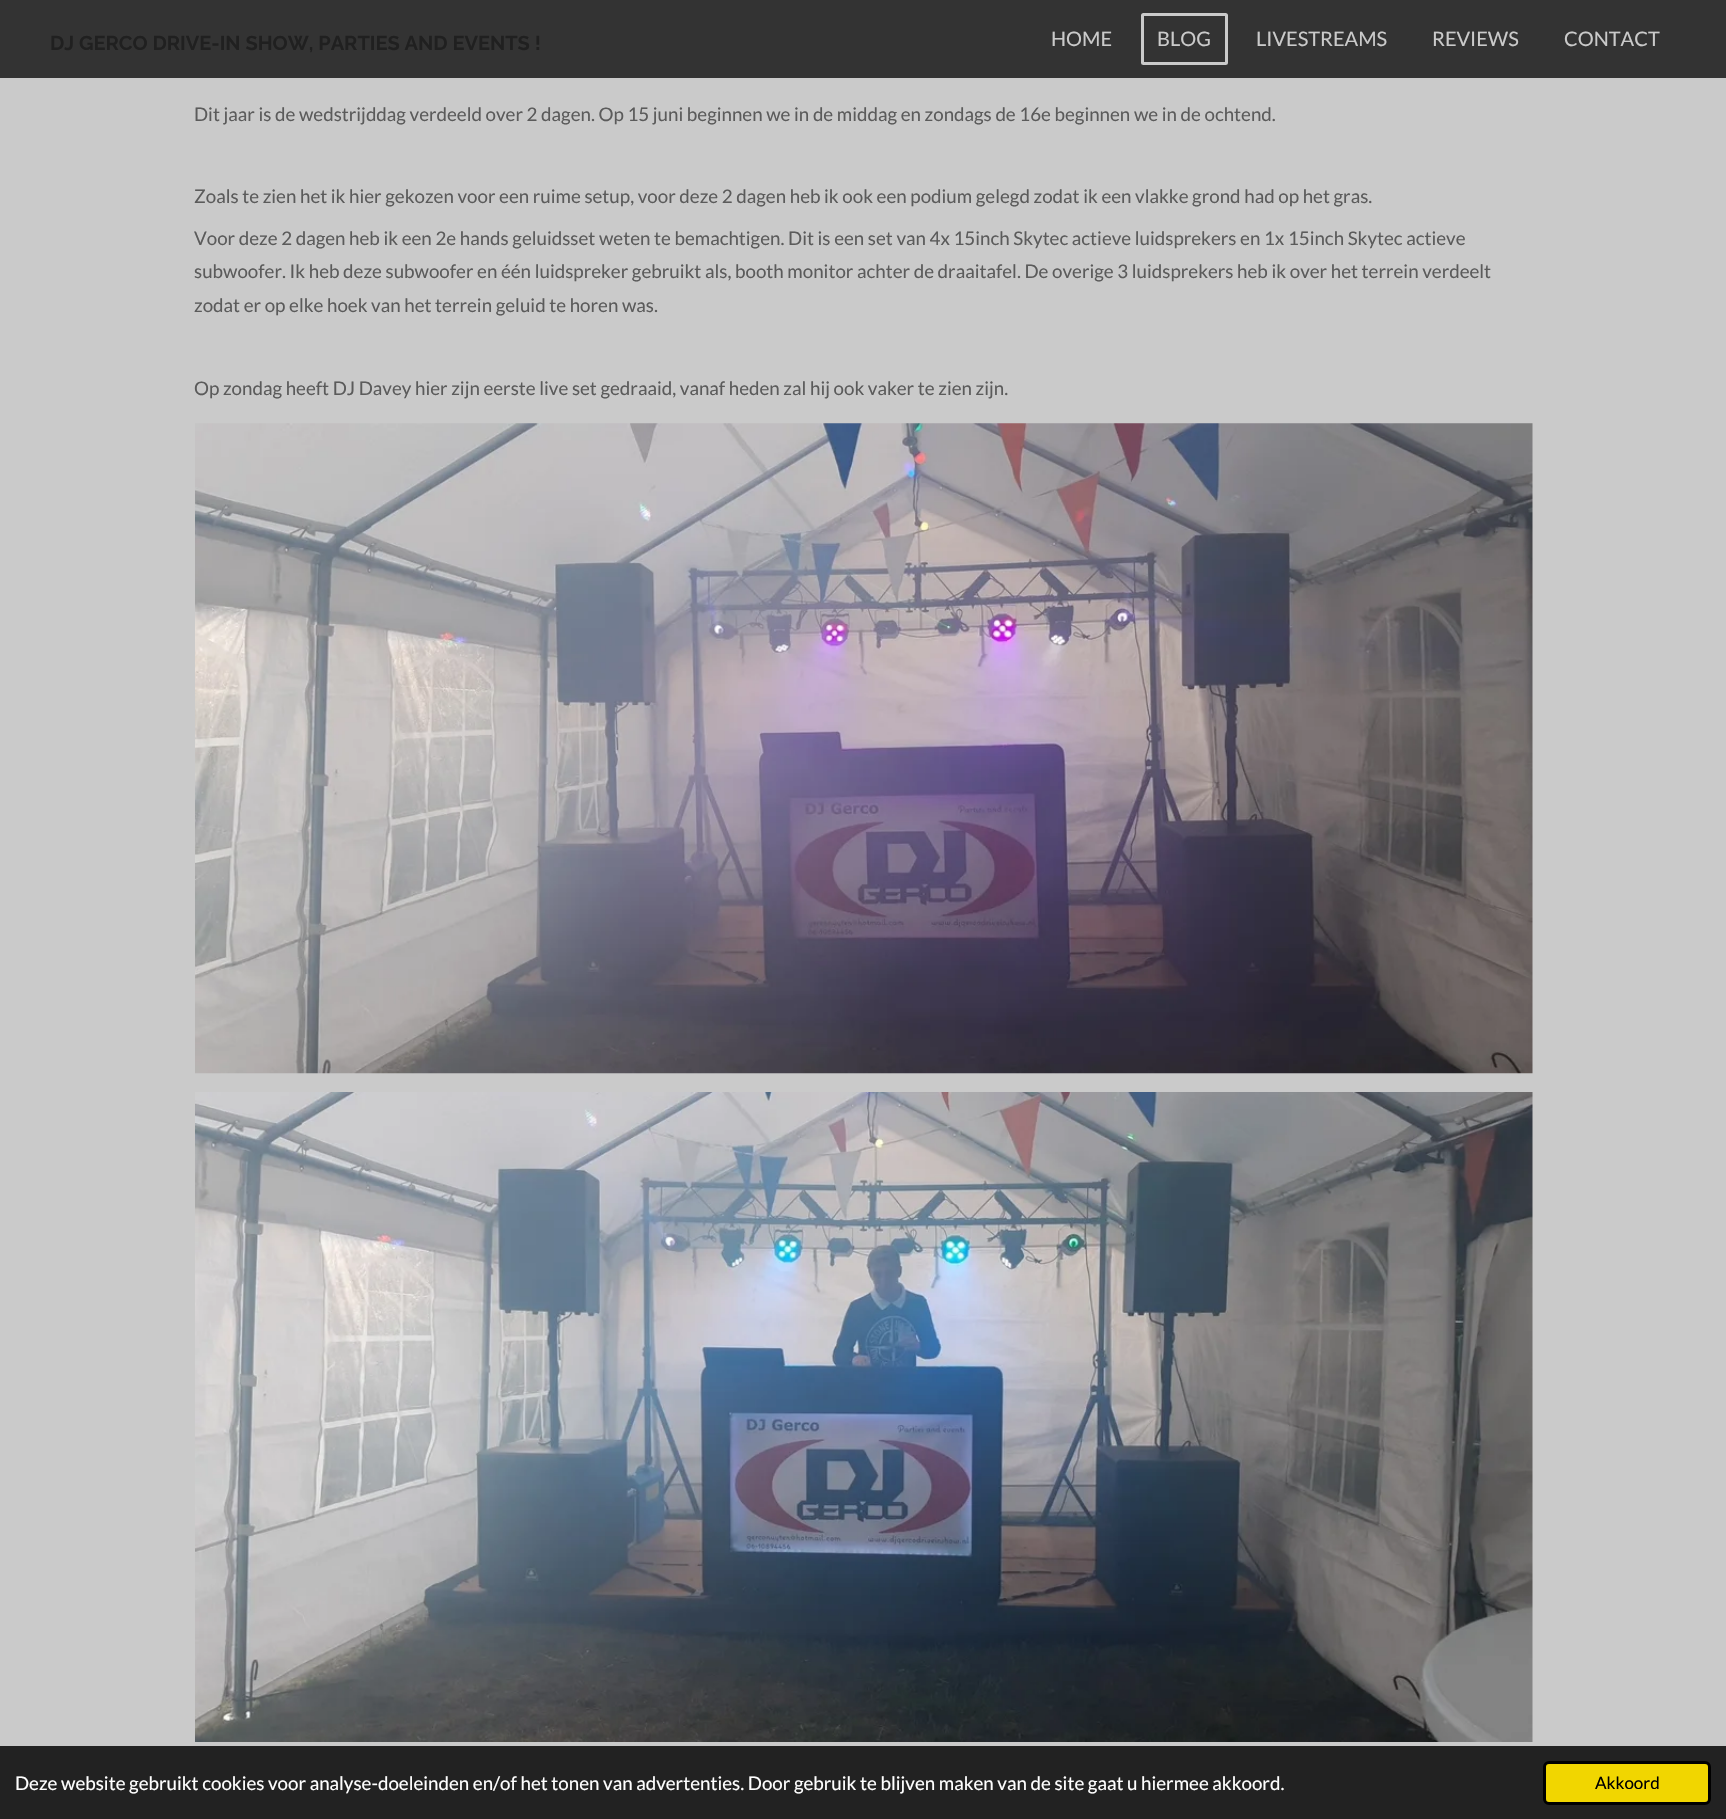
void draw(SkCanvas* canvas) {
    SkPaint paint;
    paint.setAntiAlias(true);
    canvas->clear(0xFFCACACA);
    paint.setColor(0xFF333333);
    canvas->drawRect(SkRect::MakeXYWH(0, 0, 1726, 78), paint);
    SkFont font1(fontMgr->matchFamilyStyle("Raleway", SkFontStyle::Bold()), 20);
    font1.setSubpixel(true);
    paint.setColor(0xFF202020);
    canvas->drawString("DJ GERCO DRIVE-IN SHOW, PARTIES AND EVENTS !", 50, 50, font1, paint);
    SkFont font2(fontMgr->matchFamilyStyle("Lato", SkFontStyle::Normal()), 20);
    font2.setSubpixel(true);
    paint.setColor(0xFFCACACA);
    canvas->drawString("HOME", 1051, 46, font2, paint);
    paint.setStyle(SkPaint::kStroke_Style);
    paint.setStrokeWidth(3);
    canvas->drawRoundRect(SkRect::MakeXYWH(1142.5f, 14.5f, 84, 49), 1, 1, paint);
    paint.setStyle(SkPaint::kFill_Style);
    canvas->drawString("BLOG", 1157, 46, font2, paint);
    canvas->drawString("LIVESTREAMS", 1256, 46, font2, paint);
    canvas->drawString("REVIEWS", 1432, 46, font2, paint);
    canvas->drawString("CONTACT", 1564, 46, font2, paint);
    SkFont font3(fontMgr->matchFamilyStyle("Lato", SkFontStyle::Normal()), 18.75f);
    font3.setSubpixel(true);
    paint.setColor(0xFF5B5B5B);
    canvas->drawString("Dit jaar is de wedstrijddag verdeeld over 2 dagen. Op 15 juni beginnen we in de middag en zondags de 16e beginnen we in de ochtend.", 194, 121, font3, paint);
    canvas->drawString("Zoals te zien het ik hier gekozen voor een ruime setup, voor deze 2 dagen heb ik ook een podium gelegd zodat ik een vlakke grond had op het gras.", 194, 203, font3, paint);
    canvas->drawString("Voor deze 2 dagen heb ik een 2e hands geluidsset weten te bemachtigen. Dit is een set van 4x 15inch Skytec actieve luidsprekers en 1x 15inch Skytec actieve", 194, 245, font3, paint);
    canvas->drawString("subwoofer. Ik heb deze subwoofer en één luidspreker gebruikt als, booth monitor achter de draaitafel. De overige 3 luidsprekers heb ik over het terrein verdeelt", 194, 278, font3, paint);
    canvas->drawString("zodat er op elke hoek van het terrein geluid te horen was.", 194, 312, font3, paint);
    canvas->drawString("Op zondag heeft DJ Davey hier zijn eerste live set gedraaid, vanaf heden zal hij ook vaker te zien zijn.", 194, 395, font3, paint);
    canvas->drawImageRect(SkImages::DeferredFromEncodedData(SkData::MakeFromFileName("img1.png")), SkRect::MakeXYWH(195, 423, 1338, 651), SkSamplingOptions());
    canvas->drawImageRect(SkImages::DeferredFromEncodedData(SkData::MakeFromFileName("img2.png")), SkRect::MakeXYWH(195, 1092, 1338, 650), SkSamplingOptions());
    paint.setColor(0xFF222222);
    canvas->drawRect(SkRect::MakeXYWH(0, 1746, 1726, 73), paint);
    paint.setColor(0xFFFFFFFF);
    canvas->drawString("Deze website gebruikt cookies voor analyse-doeleinden en/of het tonen van advertenties. Door gebruik te blijven maken van de site gaat u hiermee akkoord.", 15, 1790, font3, paint);
    paint.setColor(0xFFF1D600);
    canvas->drawRoundRect(SkRect::MakeXYWH(1544.5f, 1762.5f, 165, 41), 4.5f, 4.5f, paint);
    paint.setStyle(SkPaint::kStroke_Style);
    paint.setColor(0xFF000000);
    canvas->drawRoundRect(SkRect::MakeXYWH(1544.5f, 1762.5f, 165, 41), 4.5f, 4.5f, paint);
    SkFont font4(fontMgr->matchFamilyStyle("Lato", SkFontStyle::Normal()), 17);
    font4.setSubpixel(true);
    paint.setStyle(SkPaint::kFill_Style);
    canvas->drawString("Akkoord", 1595, 1789, font4, paint);
}
